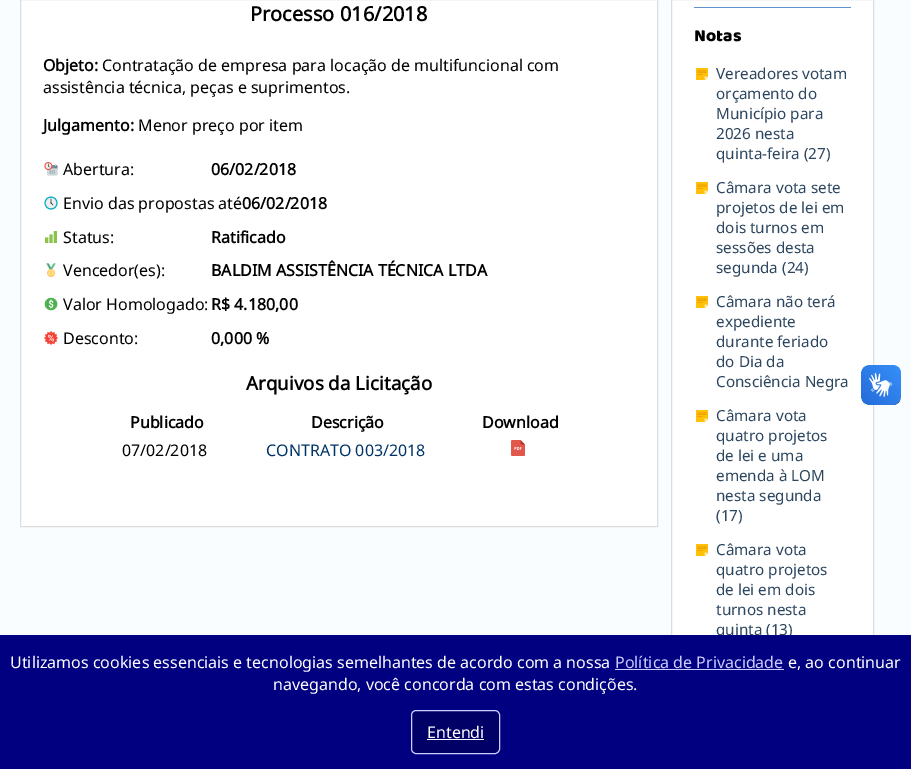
%!PS
<< /PageSize [911 769] >> setpagedevice
/mt/moveto load def
/li/lineto load def
/cp/closepath load def
/fl/fill load def
/st/stroke load def
/gs/gsave load def
/gr/grestore load def
/co { dup -16 bitshift 255 div exch dup -8 bitshift 255 and 255 div exch 255 and 255 div setrgbcolor } def
/fn { [ exch dup neg 0 0 3 -1 roll 0 0 ] selectfont } def
/tx { co fn moveto show } def
/bx { co rectfill } def
/rr { 5 dict begin { /r /h /w /y /x } { exch def } forall
  x r add y moveto x w add y 2 copy h add r arct x w add y h add x 1 index r arct
  x y h add x y r arct x y 2 copy exch w add exch r arct closepath end } def
/im { 5 dict begin { /h /w /y /x /name } { exch def } forall
  gsave x y translate w h scale
  w h 8 [w 0 0 h 0 0] name (r) file false 3 colorimage grestore end } def
0 769 translate 1 -1 scale
4 setmiterlimit
0 0 911 769 16#FAFDFF bx
16#FFFFFF co
20.5 -.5 mt 657.5 -.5 li 657.5 526.5 li 20.5 526.5 li cp gs fl gr
16#DDDDDD co
st
(media/1.raw) 44 162 14 14 im
(media/2.raw) 44 196 14 14 im
(media/3.raw) 45 231 12 12 im
(media/4.raw) 46 263 10 14 im
(media/5.raw) 44 297 14 14 im
(media/6.raw) 44 331 14 14 im
(media/7.raw) 511 440 14 16 im
672 0 201 635 16#FFFFFF bx
16#DDDDDD co
671.5 -.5 202 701 rectstroke
694 7 157 1 16#5F92CB bx
(media/8.raw) 696 68 12 12 im
(media/8.raw) 696 182 12 12 im
(media/8.raw) 696 296 12 12 im
(media/8.raw) 696 410 12 12 im
(media/8.raw) 696 544 12 12 im
(media/9.raw) 861 365 40 40 im
(media/10.raw) 861 365 40 40 im
(Processo 016/2018) 250 21 /NotoSans-Bold 20 16#000000 tx
(Objeto:) 43 71 /NotoSans-Bold 16 16#000000 tx
(Contratação de empresa para locação de multifuncional com) 102 71 /NotoSans-Regular 16 16#000000 tx
(assistência técnica, peças e suprimentos.) 43 93 /NotoSans-Regular 16 16#000000 tx
(Julgamento:) 43 131 /NotoSans-Bold 16 16#000000 tx
(Menor preço por item) 138 131 /NotoSans-Regular 16 16#000000 tx
(Abertura:) 63 175 /NotoSans-Regular 16 16#000000 tx
(06/02/2018) 211 175 /NotoSans-Bold 16 16#000000 tx
(Envio das propostas até) 63 209 /NotoSans-Regular 16 16#000000 tx
(06/02/2018) 242 209 /NotoSans-Bold 16 16#000000 tx
(Status:) 63 243 /NotoSans-Regular 16 16#000000 tx
(Ratificado) 211 243 /NotoSans-Bold 16 16#000000 tx
(Vencedor\(es\):) 63 276 /NotoSans-Regular 16 16#000000 tx
(BALDIM ASSISTÊNCIA TÉCNICA LTDA) 211 276 /NotoSans-Bold 16 16#000000 tx
(Valor Homologado:) 63 310 /NotoSans-Regular 16 16#000000 tx
(R$ 4.180,00) 211 310 /NotoSans-Bold 16 16#000000 tx
(Desconto:) 63 344 /NotoSans-Regular 16 16#000000 tx
(0,000 %) 211 344 /NotoSans-Bold 16 16#000000 tx
(Arquivos da Licitação) 246 390 /NotoSans-Bold 18.75 16#000000 tx
(Publicado) 130 428 /NotoSans-Bold 16 16#000000 tx
(Descrição) 311 428 /NotoSans-Bold 16 16#000000 tx
(Download) 482 428 /NotoSans-Bold 16 16#000000 tx
(07/02/2018) 122 456 /NotoSans-Regular 16 16#000000 tx
(CONTRATO 003/2018) 266 456 /NotoSans-Regular 16 16#003366 tx
(Notas) 694 41 /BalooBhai-Regular 17.5 16#000000 tx
(Vereadores votam) 716 79 /NotoSans-Regular 15.25 16#2D4660 tx
(orçamento do) 716 99 /NotoSans-Regular 15.25 16#2D4660 tx
(Município para) 716 119 /NotoSans-Regular 15.25 16#2D4660 tx
(2026 nesta) 716 139 /NotoSans-Regular 15.25 16#2D4660 tx
(quinta-feira \(27\)) 716 159 /NotoSans-Regular 15.25 16#2D4660 tx
(Câmara vota sete) 716 193 /NotoSans-Regular 15.25 16#2D4660 tx
(projetos de lei em) 716 213 /NotoSans-Regular 15.25 16#2D4660 tx
(dois turnos em) 716 233 /NotoSans-Regular 15.25 16#2D4660 tx
(sessões desta) 716 253 /NotoSans-Regular 15.25 16#2D4660 tx
(segunda \(24\)) 716 273 /NotoSans-Regular 15.25 16#2D4660 tx
(Câmara não terá) 716 307 /NotoSans-Regular 15.25 16#2D4660 tx
(expediente) 716 327 /NotoSans-Regular 15.25 16#2D4660 tx
(durante feriado) 716 347 /NotoSans-Regular 15.25 16#2D4660 tx
(do Dia da) 716 367 /NotoSans-Regular 15.25 16#2D4660 tx
(Consciência Negra) 716 387 /NotoSans-Regular 15.25 16#2D4660 tx
(Câmara vota) 716 421 /NotoSans-Regular 15.25 16#2D4660 tx
(quatro projetos) 716 441 /NotoSans-Regular 15.25 16#2D4660 tx
(de lei e uma) 716 461 /NotoSans-Regular 15.25 16#2D4660 tx
(emenda à LOM) 716 481 /NotoSans-Regular 15.25 16#2D4660 tx
(nesta segunda) 716 501 /NotoSans-Regular 15.25 16#2D4660 tx
(\(17\)) 716 521 /NotoSans-Regular 15.25 16#2D4660 tx
(Câmara vota) 716 555 /NotoSans-Regular 15.25 16#2D4660 tx
(quatro projetos) 716 575 /NotoSans-Regular 15.25 16#2D4660 tx
(de lei em dois) 716 595 /NotoSans-Regular 15.25 16#2D4660 tx
(turnos nesta) 716 615 /NotoSans-Regular 15.25 16#2D4660 tx
(quinta \(13\)) 716 635 /NotoSans-Regular 15.25 16#2D4660 tx
0 635 911 134 16#000080 bx
(Utilizamos cookies essenciais e tecnologias semelhantes de acordo com a nossa) 10 668 /NotoSans-Regular 16 16#FFFFFF tx
(Política de Privacidade) 615 668 /NotoSans-Regular 16 16#CCCCFF tx
615 669 169 1 16#CCCCFF bx
(e, ao continuar) 788 668 /NotoSans-Regular 16 16#FFFFFF tx
(navegando, você concorda com estas condições.) 273 690 /NotoSans-Regular 16 16#FFFFFF tx
16#000066 co
411.5 710.5 88 43 4.5 rr gs fl gr
16#CCCCFF co
st
(Entendi) 427 738 /NotoSans-Regular 16 16#FFFFFF tx
427 739 57 1 16#FFFFFF bx
showpage
